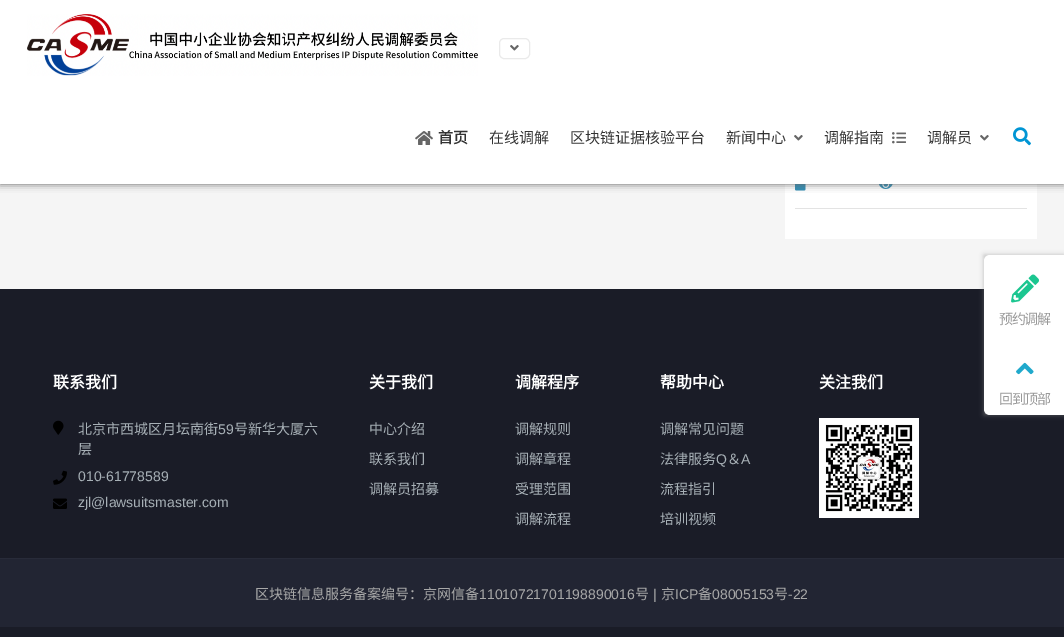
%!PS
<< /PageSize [1064 637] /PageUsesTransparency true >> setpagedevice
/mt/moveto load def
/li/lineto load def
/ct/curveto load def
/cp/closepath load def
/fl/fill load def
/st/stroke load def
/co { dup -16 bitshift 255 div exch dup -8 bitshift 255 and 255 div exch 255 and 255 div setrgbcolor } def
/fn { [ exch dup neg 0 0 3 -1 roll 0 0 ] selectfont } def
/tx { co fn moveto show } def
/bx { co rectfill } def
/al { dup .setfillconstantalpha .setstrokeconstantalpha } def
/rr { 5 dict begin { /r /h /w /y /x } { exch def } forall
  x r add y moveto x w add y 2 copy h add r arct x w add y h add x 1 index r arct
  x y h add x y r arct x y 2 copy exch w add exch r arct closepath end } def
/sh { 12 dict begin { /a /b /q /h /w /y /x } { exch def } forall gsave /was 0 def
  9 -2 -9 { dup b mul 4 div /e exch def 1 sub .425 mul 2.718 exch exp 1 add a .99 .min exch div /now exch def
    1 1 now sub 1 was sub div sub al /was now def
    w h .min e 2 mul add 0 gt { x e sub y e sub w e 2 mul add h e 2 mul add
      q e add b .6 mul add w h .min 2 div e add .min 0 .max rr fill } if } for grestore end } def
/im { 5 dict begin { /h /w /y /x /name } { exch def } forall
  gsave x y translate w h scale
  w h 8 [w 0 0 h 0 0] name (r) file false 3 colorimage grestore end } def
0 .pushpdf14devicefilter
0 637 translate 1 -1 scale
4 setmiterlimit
0 0 1064 637 16#F5F5F5 bx
785 184 252 55 16#FFFFFF bx
(media/6.raw) 795 184 11 7 im
(media/7.raw) 879 184 14 5 im
16#666666 co
0 0 1064 184 0 4 1 sh
0 0 1064 184 16#FFFFFF bx
(media/1.raw) 27 14 451 62 im
16#EAEAEA co
499.5 38.5 30 20 4.5 rr st
(media/2.raw) 510 45 9 6 im
(media/3.raw) 415 131 18 14 im
(media/2.raw) 794 135 9 6 im
(media/4.raw) 892 132 14 12 im
(media/2.raw) 980 135 9 6 im
(media/5.raw) 1013 127 18 19 im
795 208 232 1 16#E3E3E3 bx
0 289 1064 348 16#1A1C27 bx
16#8D8D8D co
984 255 80 160 0 2.5 .5 sh
16#FFFFFF co
990 255 mt 1064 255 li 1064 335 li 984 335 li 984 261 li 984 257.5 986.5 255 990 255 ct cp fl
(media/8.raw) 1011 274 28 29 im
984 335 mt 1064 335 li 1064 415 li 990 415 li 986.5 415 984 412.5 984 409 ct cp fl
(media/9.raw) 1016 362 18 13 im
(media/10.raw) 53 420 11 15 im
(media/11.raw) 53 470 14 15 im
(media/12.raw) 53 498 14 11 im
(media/13.raw) 819 418 100 100 im
0 559 1064 68 16#222533 bx
0 558 1064 1 16#282B39 bx
(首页) 438 143 /NotoSansCJKSC-Bold 15 16#333333 tx
(在线调解) 489 143 /NotoSansCJKSC-Regular 15 16#333333 tx
(区块链证据核验平台) 570 143 /NotoSansCJKSC-Regular 15 16#333333 tx
(新闻中心) 726 143 /NotoSansCJKSC-Regular 15 16#333333 tx
(调解指南) 824 143 /NotoSansCJKSC-Regular 15 16#333333 tx
(调解员) 927 143 /NotoSansCJKSC-Regular 15 16#333333 tx
/NotoSansCJKSC-Regular 14 fn
16#999999 co
999 324 mt -1.5 0 (预约调解) ashow
999 404 mt -1.5 0 (回到顶部) ashow
(联系我们) 53 388 /NotoSansCJKSC-Bold 16 16#FFFFFF tx
(北京市西城区月坛南街) 78 434 /NotoSansCJKSC-Regular 14 16#A7B0B6 tx
(59) 218 434 /LiberationSans-Regular 14 16#A7B0B6 tx
(号新华大厦六) 234 434 /NotoSansCJKSC-Regular 14 16#A7B0B6 tx
(层) 78 454 /NotoSansCJKSC-Regular 14 16#A7B0B6 tx
(010-61778589) 78 481 /LiberationSans-Regular 14 16#A7B0B6 tx
(zjl@lawsuitsmaster.com) 78 507 /LiberationSans-Regular 14 16#A7B0B6 tx
(关于我们) 369 388 /NotoSansCJKSC-Bold 16 16#FFFFFF tx
(中心介绍) 369 434 /NotoSansCJKSC-Regular 14 16#A7B0B6 tx
(联系我们) 369 464 /NotoSansCJKSC-Regular 14 16#A7B0B6 tx
(调解员招募) 369 494 /NotoSansCJKSC-Regular 14 16#A7B0B6 tx
(调解程序) 515 388 /NotoSansCJKSC-Bold 16 16#FFFFFF tx
(调解规则) 515 434 /NotoSansCJKSC-Regular 14 16#A7B0B6 tx
(调解章程) 515 464 /NotoSansCJKSC-Regular 14 16#A7B0B6 tx
(受理范围) 515 494 /NotoSansCJKSC-Regular 14 16#A7B0B6 tx
(调解流程) 515 524 /NotoSansCJKSC-Regular 14 16#A7B0B6 tx
(帮助中心) 660 388 /NotoSansCJKSC-Bold 16 16#FFFFFF tx
(调解常见问题) 660 434 /NotoSansCJKSC-Regular 14 16#A7B0B6 tx
(法律服务) 660 464 /NotoSansCJKSC-Regular 14 16#A7B0B6 tx
(Q) 716 464 /LiberationSans-Regular 14 16#A7B0B6 tx
(＆) 727 464 /NotoSansCJKSC-Regular 14 16#A7B0B6 tx
(A) 741 464 /LiberationSans-Regular 14 16#A7B0B6 tx
(流程指引) 660 494 /NotoSansCJKSC-Regular 14 16#A7B0B6 tx
(培训视频) 660 524 /NotoSansCJKSC-Regular 14 16#A7B0B6 tx
(关注我们) 819 388 /NotoSansCJKSC-Bold 16 16#FFFFFF tx
(区块链信息服务备案编号：京网信备) 255 599 /NotoSansCJKSC-Regular 14 16#A8A8A8 tx
(11010721701198890016) 479 599 /LiberationSans-Regular 14 16#A8A8A8 tx
(号) 635 599 /NotoSansCJKSC-Regular 14 16#A8A8A8 tx
(|) 653 599 /LiberationSans-Regular 14 16#A8A8A8 tx
(京) 661 599 /NotoSansCJKSC-Regular 14 16#A8A8A8 tx
(ICP) 675 599 /LiberationSans-Regular 14 16#A8A8A8 tx
(备) 698 599 /NotoSansCJKSC-Regular 14 16#A8A8A8 tx
(08005153) 712 599 /LiberationSans-Regular 14 16#A8A8A8 tx
(号) 774 599 /NotoSansCJKSC-Regular 14 16#A8A8A8 tx
(-22) 788 599 /LiberationSans-Regular 14 16#A8A8A8 tx
.poppdf14devicefilter showpage
